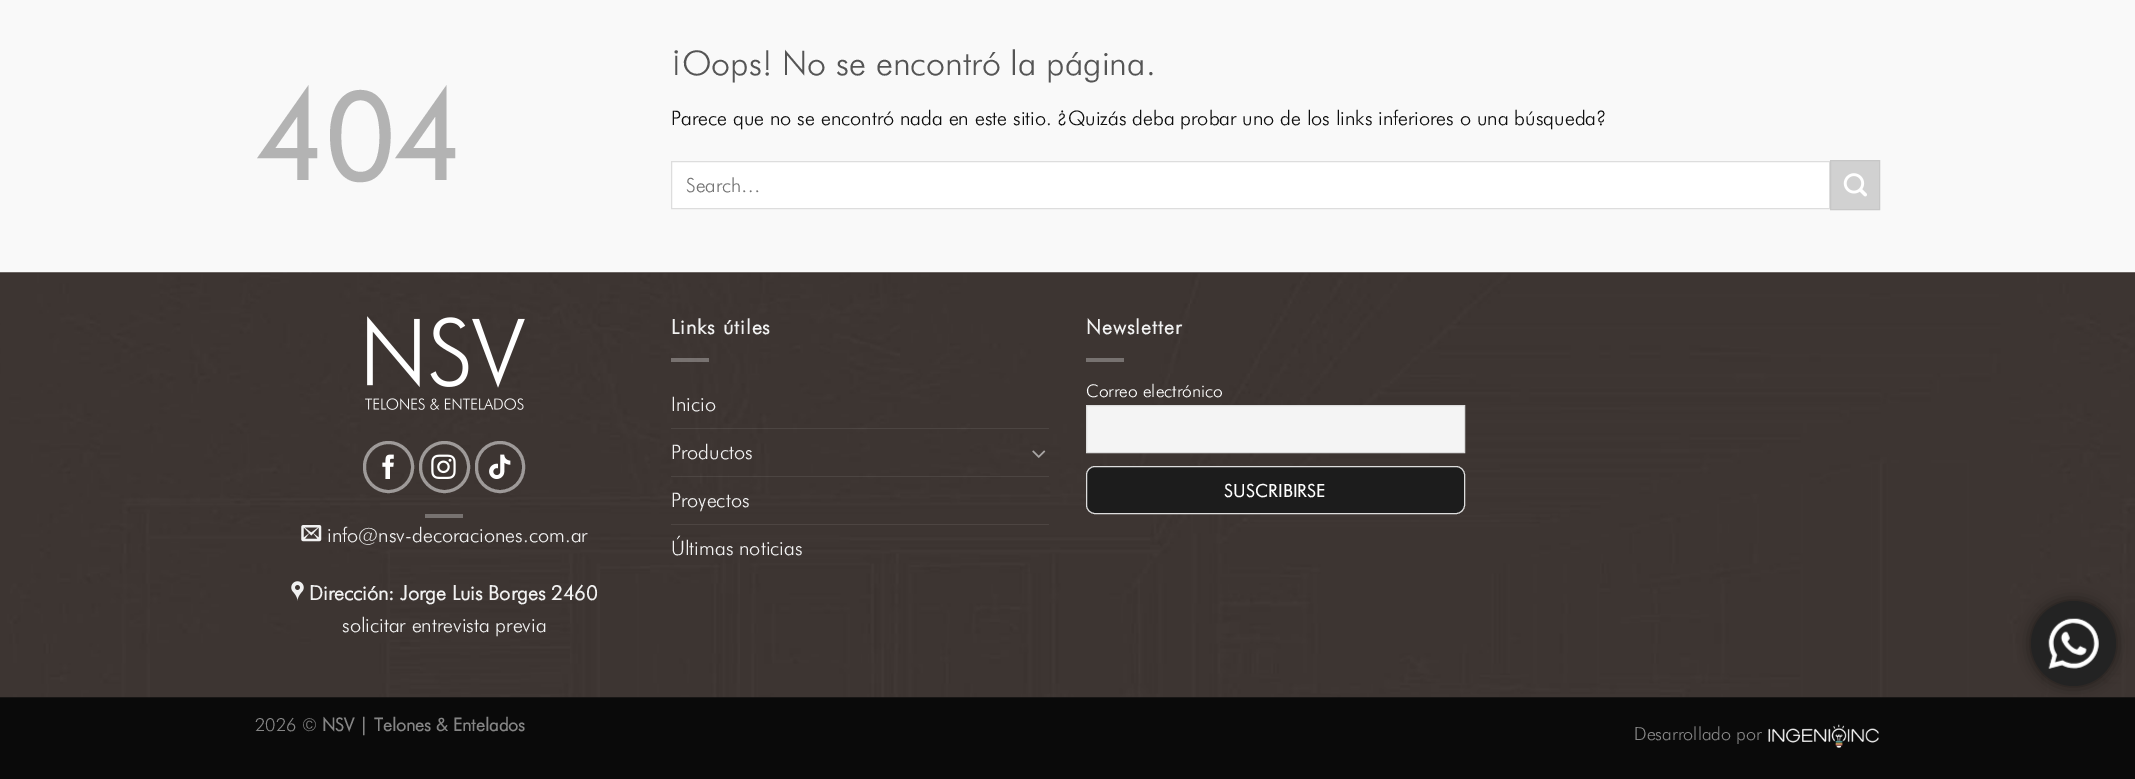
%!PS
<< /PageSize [2135 779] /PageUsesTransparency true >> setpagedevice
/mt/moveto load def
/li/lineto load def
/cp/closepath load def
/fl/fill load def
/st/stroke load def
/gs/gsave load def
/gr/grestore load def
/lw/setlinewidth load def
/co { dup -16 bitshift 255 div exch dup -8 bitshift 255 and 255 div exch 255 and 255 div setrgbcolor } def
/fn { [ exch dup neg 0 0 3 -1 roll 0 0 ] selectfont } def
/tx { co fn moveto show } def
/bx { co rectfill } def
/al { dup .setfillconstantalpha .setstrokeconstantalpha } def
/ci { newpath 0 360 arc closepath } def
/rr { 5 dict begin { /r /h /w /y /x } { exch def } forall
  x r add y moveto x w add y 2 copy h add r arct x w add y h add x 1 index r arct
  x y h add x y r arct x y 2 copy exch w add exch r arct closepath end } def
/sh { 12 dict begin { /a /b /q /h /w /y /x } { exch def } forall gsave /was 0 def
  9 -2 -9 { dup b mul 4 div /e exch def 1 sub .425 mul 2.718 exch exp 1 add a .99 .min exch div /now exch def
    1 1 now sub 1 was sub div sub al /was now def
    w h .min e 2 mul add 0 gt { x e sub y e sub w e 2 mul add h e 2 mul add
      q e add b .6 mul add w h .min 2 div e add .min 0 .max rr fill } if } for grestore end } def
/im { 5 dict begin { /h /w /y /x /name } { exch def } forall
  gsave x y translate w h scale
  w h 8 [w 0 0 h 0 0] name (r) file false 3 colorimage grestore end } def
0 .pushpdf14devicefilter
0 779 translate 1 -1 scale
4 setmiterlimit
0 0 2135 779 16#F9F9F9 bx
16#FFFFFF co
671.5 161.5 mt 1829.5 161.5 li 1829.5 208.5 li 671.5 208.5 li cp gs fl gr
16#DDDDDD co
st
16#D1D1D1 co
1830.5 160.5 mt 1879.5 160.5 li 1879.5 209.5 li 1830.5 209.5 li cp gs fl gr
16#C7C7C7 co
st
(media/1.raw) 1843 173 24 24 im
0 697 2135 1 16#0C0C0C bx
(media/2.raw) 0 272 2135 426 im
0.05 al
0 273 2135 1 16#000000 bx
0.3 al
671 358 38 4 16#FFFFFF bx
0.08 al
671 428 378 1 16#FFFFFF bx
1 al
(media/3.raw) 1032 450 14 8 im
0.08 al
671 476 378 1 16#FFFFFF bx
1 al
671 524 378 1 16#4D4542 bx
1086 358 38 4 16#777270 bx
16#F4F4F4 co
1086.5 405.5 mt 1464.5 405.5 li 1464.5 452.5 li 1086.5 452.5 li cp gs fl gr
16#DDDDDD co
st
16#1C1C1C co
1086.5 466.5 378 47 8.5 rr gs fl gr
16#DDDDDD co
st
(media/4.raw) 365 316 160 94 im
0.5 al
16#FFFFFF co
3 lw
364.5 442.5 48 49 24 rr st
1 al
(media/5.raw) 382 454 12 25 im
0.5 al
420.5 442.5 48 49 24 rr st
1 al
(media/6.raw) 431 454 25 25 im
0.5 al
476.5 442.5 47 49 23.5 rr st
1 al
(media/7.raw) 489 454 22 25 im
425 514 38 4 16#777270 bx
(media/8.raw) 301 525 21 17 im
(media/9.raw) 291 581 13 20 im
0 698 2135 81 16#0A0A0A bx
(media/10.raw) 1768 724 111 24 im
16#000000 co
2031 601 85 85 42.5 7 .5 sh
16#232323 co
2073.5 643.5 42.5 ci fl
(media/11.raw) 2048 618 51 51 im
(404) 255 180 /Futura-Bold 120 16#B3B3B3 tx
(¡Oops! No se encontró la página.) 671 75 /Futura-Light 34 16#555555 tx
(Parece que no se encontró nada en este sitio. ¿Quizás deba probar uno de los links inferiores o una búsqueda?) 671 125 /Futura-Light 20 16#0F0F0F tx
(Search…) 686 192 /Futura-Light 19.5 16#757575 tx
/Futura-Bold 20 fn
16#F1F1F1 co
671 334 mt 1 0 (Links útiles) ashow
(Inicio) 671 411 /Futura-Light 20 16#F1F1F1 tx
(Productos) 671 459 /Futura-Light 20 16#F1F1F1 tx
(Proyectos) 671 507 /Futura-Light 20 16#F1F1F1 tx
(Últimas noticias) 671 555 /Futura-Light 20 16#F1F1F1 tx
/Futura-Bold 20 fn
1086 334 mt 1 0 (Newsletter) ashow
(Correo electrónico) 1086 397 /Futura-Light 17.5 16#FFFFFF tx
/Futura-Bold 17.5 fn
1224 497 mt .5 0 (SUSCRIBIRSE) ashow
(info@nsv-decoraciones.com.ar) 327 542 /Futura-Light 20 16#F1F1F1 tx
(Dirección: Jorge Luis Borges 2460) 309 600 /Futura-Bold 20 16#F1F1F1 tx
(solicitar entrevista previa) 342 632 /Futura-Light 20 16#F1F1F1 tx
(2026 ©) 255 731 /Futura-Light 18 16#858585 tx
(NSV | Telones & Entelados) 322 731 /Futura-Bold 18 16#858585 tx
(Desarrollado por) 1634 740 /Futura-Light 18 16#858585 tx
.poppdf14devicefilter showpage
